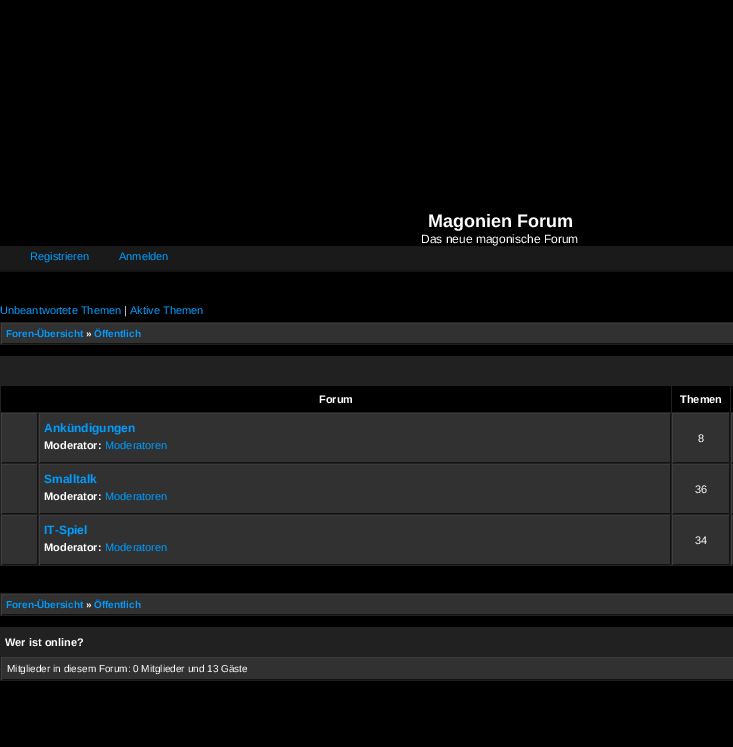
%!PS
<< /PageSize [733 747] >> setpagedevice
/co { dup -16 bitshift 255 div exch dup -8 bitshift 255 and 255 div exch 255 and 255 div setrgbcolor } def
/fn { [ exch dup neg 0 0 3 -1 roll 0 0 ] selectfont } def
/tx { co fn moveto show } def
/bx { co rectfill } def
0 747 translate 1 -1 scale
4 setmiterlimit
0 0 733 747 16#000000 bx
0 246 733 24 16#1A1A1A bx
0 270 733 2 16#131313 bx
0 322 733 23 16#212121 bx
2 324 731 19 16#313131 bx
1 323 732 1 16#3C3C3C bx
1 343 732 1 16#131313 bx
1 323 1 21 16#404040 bx
0 356 733 210 16#212121 bx
1 386 670 26 16#000000 bx
672 386 58 26 16#000000 bx
731 386 2 26 16#000000 bx
2 414 35 48 16#313131 bx
1 413 37 1 16#3C3C3C bx
37 413 1 50 16#121212 bx
1 462 37 1 16#131313 bx
1 413 1 50 16#404040 bx
40 414 630 48 16#313131 bx
39 413 632 1 16#3C3C3C bx
670 413 1 50 16#121212 bx
39 462 632 1 16#131313 bx
39 413 1 50 16#404040 bx
673 414 56 48 16#313131 bx
672 413 58 1 16#3C3C3C bx
729 413 1 50 16#121212 bx
672 462 58 1 16#131313 bx
672 413 1 50 16#404040 bx
732 413 1 50 16#313131 bx
731 413 2 1 16#3C3C3C bx
731 462 2 1 16#131313 bx
731 413 1 50 16#404040 bx
2 465 35 48 16#313131 bx
1 464 37 1 16#3C3C3C bx
37 464 1 50 16#121212 bx
1 513 37 1 16#131313 bx
1 464 1 50 16#404040 bx
40 465 630 48 16#313131 bx
39 464 632 1 16#3C3C3C bx
670 464 1 50 16#121212 bx
39 513 632 1 16#131313 bx
39 464 1 50 16#404040 bx
673 465 56 48 16#313131 bx
672 464 58 1 16#3C3C3C bx
729 464 1 50 16#121212 bx
672 513 58 1 16#131313 bx
672 464 1 50 16#404040 bx
732 464 1 50 16#313131 bx
731 464 2 1 16#3C3C3C bx
731 513 2 1 16#131313 bx
731 464 1 50 16#404040 bx
2 516 35 48 16#313131 bx
1 515 37 1 16#3C3C3C bx
37 515 1 50 16#121212 bx
1 564 37 1 16#131313 bx
1 515 1 50 16#404040 bx
40 516 630 48 16#313131 bx
39 515 632 1 16#3C3C3C bx
670 515 1 50 16#121212 bx
39 564 632 1 16#131313 bx
39 515 1 50 16#404040 bx
673 516 56 48 16#313131 bx
672 515 58 1 16#3C3C3C bx
729 515 1 50 16#121212 bx
672 564 58 1 16#131313 bx
672 515 1 50 16#404040 bx
732 515 1 50 16#313131 bx
731 515 2 1 16#3C3C3C bx
731 564 2 1 16#131313 bx
731 515 1 50 16#404040 bx
0 593 733 23 16#212121 bx
2 595 731 19 16#313131 bx
1 594 732 1 16#3C3C3C bx
1 614 732 1 16#131313 bx
1 594 1 21 16#404040 bx
0 627 733 54 16#212121 bx
2 658 731 21 16#313131 bx
1 657 732 1 16#3C3C3C bx
1 679 732 1 16#131313 bx
1 657 1 23 16#404040 bx
(Magonien Forum) 428 227 /LiberationSans-Bold 18 16#FFFFFF tx
(Das neue magonische Forum) 421 243 /LiberationSans-Regular 12 16#FFFFFF tx
(Registrieren) 30 260 /LiberationSans-Regular 11 16#009DFF tx
(Anmelden) 119 260 /LiberationSans-Regular 11 16#009DFF tx
(Unbeantwortete Themen) 0 314 /LiberationSans-Regular 11 16#009DFF tx
(|) 124 314 /LiberationSans-Regular 11 16#FFFFFF tx
(Aktive Themen) 130 314 /LiberationSans-Regular 11 16#009DFF tx
(Foren-Übersicht) 6 337 /LiberationSans-Bold 10 16#009DFF tx
(») 86 337 /LiberationSans-Bold 10 16#FFFFFF tx
(Öffentlich) 94 337 /LiberationSans-Bold 10 16#009DFF tx
(Forum) 319 403 /LiberationSans-Bold 11 16#FFFFFF tx
(Themen) 680 403 /LiberationSans-Bold 11 16#FFFFFF tx
(Ankündigungen) 44 432 /LiberationSans-Bold 12 16#009DFF tx
(Moderator:) 44 449 /LiberationSans-Bold 11 16#FFFFFF tx
(Moderatoren) 105 449 /LiberationSans-Regular 11 16#009DFF tx
(8) 698 442 /LiberationSans-Regular 11 16#FFFFFF tx
(Smalltalk) 44 483 /LiberationSans-Bold 12 16#009DFF tx
(Moderator:) 44 500 /LiberationSans-Bold 11 16#FFFFFF tx
(Moderatoren) 105 500 /LiberationSans-Regular 11 16#009DFF tx
(36) 695 493 /LiberationSans-Regular 11 16#FFFFFF tx
(IT-Spiel) 44 534 /LiberationSans-Bold 12 16#009DFF tx
(Moderator:) 44 551 /LiberationSans-Bold 11 16#FFFFFF tx
(Moderatoren) 105 551 /LiberationSans-Regular 11 16#009DFF tx
(34) 695 544 /LiberationSans-Regular 11 16#FFFFFF tx
(Foren-Übersicht) 6 608 /LiberationSans-Bold 10 16#009DFF tx
(») 86 608 /LiberationSans-Bold 10 16#FFFFFF tx
(Öffentlich) 94 608 /LiberationSans-Bold 10 16#009DFF tx
(Wer ist online?) 5 646 /LiberationSans-Bold 11 16#FFFFFF tx
(Mitglieder in diesem Forum: 0 Mitglieder und 13 Gäste) 7 672 /LiberationSans-Regular 10 16#FFFFFF tx
showpage
